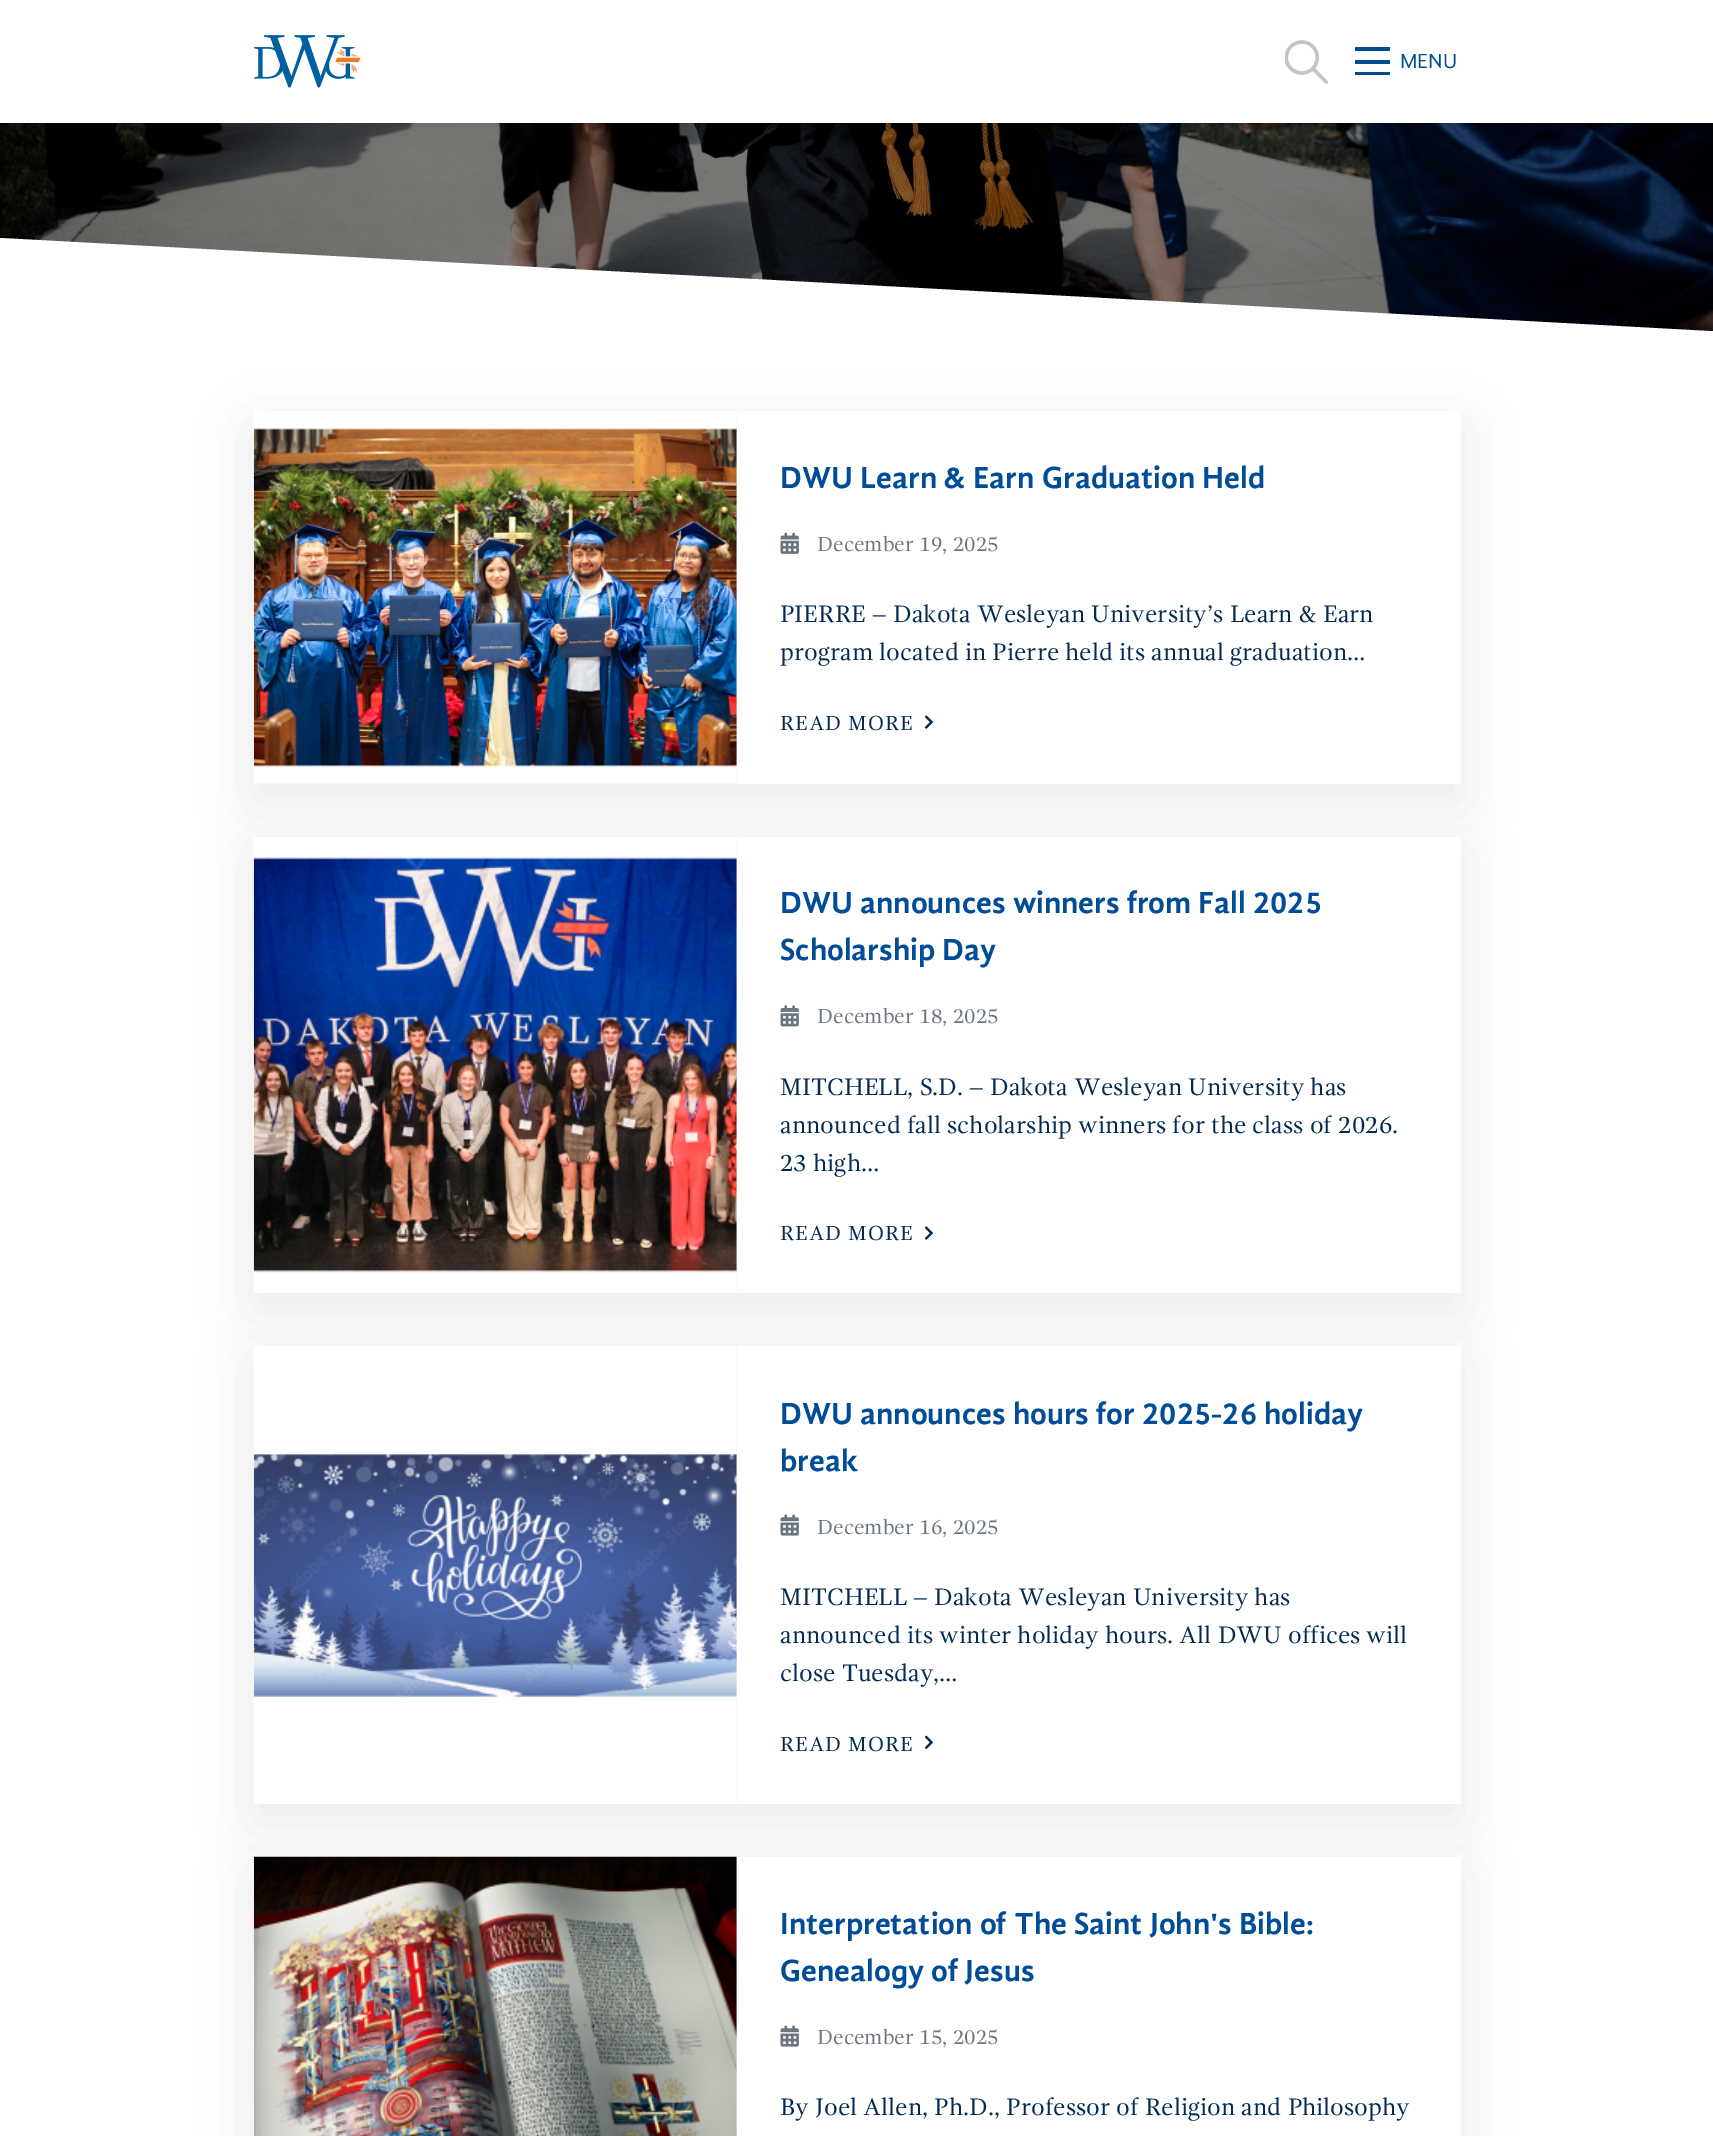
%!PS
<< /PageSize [1713 2136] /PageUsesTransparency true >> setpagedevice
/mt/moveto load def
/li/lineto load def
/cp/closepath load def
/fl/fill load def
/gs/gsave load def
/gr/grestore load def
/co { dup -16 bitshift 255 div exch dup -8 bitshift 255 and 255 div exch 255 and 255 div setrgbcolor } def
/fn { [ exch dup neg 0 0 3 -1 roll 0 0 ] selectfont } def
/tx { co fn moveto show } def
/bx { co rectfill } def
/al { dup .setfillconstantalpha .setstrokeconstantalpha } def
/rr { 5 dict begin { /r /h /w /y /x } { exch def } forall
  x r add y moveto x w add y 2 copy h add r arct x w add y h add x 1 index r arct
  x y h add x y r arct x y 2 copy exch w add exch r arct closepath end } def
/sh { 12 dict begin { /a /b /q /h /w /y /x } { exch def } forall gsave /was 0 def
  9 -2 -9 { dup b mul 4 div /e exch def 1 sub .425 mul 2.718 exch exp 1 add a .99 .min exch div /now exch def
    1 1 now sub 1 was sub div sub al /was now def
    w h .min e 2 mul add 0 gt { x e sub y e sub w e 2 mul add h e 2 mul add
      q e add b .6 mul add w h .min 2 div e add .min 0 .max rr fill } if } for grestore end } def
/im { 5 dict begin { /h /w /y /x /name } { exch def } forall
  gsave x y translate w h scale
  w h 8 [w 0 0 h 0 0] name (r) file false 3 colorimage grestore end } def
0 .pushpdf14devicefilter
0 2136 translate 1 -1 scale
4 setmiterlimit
0 0 1713 2136 16#FFFFFF bx
(media/3.raw) 0 123 1713 209 im
16#000000 co
0 2 1713 122 0 4.5 .06 sh
0 4 1713 122 0 2 .06 sh
0 0 1713 123 16#FFFFFF bx
(media/1.raw) 254 35 107 53 im
(media/2.raw) 1285 40 43 44 im
1355 47 35 4 16#004C97 bx
1355 60 35 4 16#004C97 bx
1355 72 35 3 16#004C97 bx
16#FFFFFF co
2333 413 mt 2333 365 li 0 238 li 0 413 li cp fl
gs
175 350 mt 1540 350 li 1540 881 li 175 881 li cp 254 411 mt 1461 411 li 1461 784 li 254 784 li cp eoclip newpath
16#000000 co
254 429 1207 373 0 26 .08 sh
gr
254 411 483 373 16#F1F1F1 bx
(media/4.raw) 253 411 484 373 im
(media/5.raw) 780 532 19 22 im
(media/6.raw) 924 715 9 14 im
16#000000 co
254 854 1207 457 0 26 .08 sh
737 837 724 456 16#FFFFFF bx
736 837 1 456 16#F1F1F1 bx
(media/7.raw) 253 837 484 456 im
(media/8.raw) 780 1005 19 22 im
(media/6.raw) 924 1226 9 14 im
16#000000 co
254 1363 1207 459 0 26 .08 sh
737 1346 724 458 16#FFFFFF bx
736 1346 1 458 16#F1F1F1 bx
(media/9.raw) 253 1346 484 458 im
(media/10.raw) 780 1514 19 22 im
(media/11.raw) 924 1735 9 14 im
16#000000 co
254 1874 1207 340 0 26 .08 sh
737 1857 724 279 16#FFFFFF bx
736 1857 1 279 16#F1F1F1 bx
(media/12.raw) 253 1856 484 280 im
(media/10.raw) 780 2025 19 22 im
(MENU) 1400 68 /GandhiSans-Regular 21 16#004C97 tx
(DWU Learn & Earn Graduation Held) 780 488 /GandhiSans-Bold 31.5 16#004C97 tx
(December 19, 2025) 817 551 /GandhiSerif-Regular 21 16#6C757D tx
(PIERRE – Dakota Wesleyan University’s Learn & Earn) 780 622 /GandhiSerif-Regular 24.5 16#022A52 tx
(program located in Pierre held its annual graduation…) 780 660 /GandhiSerif-Regular 24.5 16#022A52 tx
/GandhiSerif-Regular 21 fn
780 730 mt .9 0 (READ MORE) ashow
(DWU announces winners from Fall 2025) 780 913 /GandhiSans-Bold 31.5 16#004C97 tx
(Scholarship Day) 780 960 /GandhiSans-Bold 31.5 16#004C97 tx
(December 18, 2025) 817 1023 /GandhiSerif-Regular 21 16#6C757D tx
(MITCHELL, S.D. – Dakota Wesleyan University has) 780 1095 /GandhiSerif-Regular 24.5 16#022A52 tx
(announced fall scholarship winners for the class of 2026.) 780 1133 /GandhiSerif-Regular 24.5 16#022A52 tx
(23 high…) 780 1171 /GandhiSerif-Regular 24.5 16#022A52 tx
/GandhiSerif-Regular 21 fn
780 1240 mt .9 0 (READ MORE) ashow
(DWU announces hours for 2025-26 holiday) 780 1424 /GandhiSans-Bold 31.5 16#004C97 tx
(break) 780 1471 /GandhiSans-Bold 31.5 16#004C97 tx
(December 16, 2025) 817 1534 /GandhiSerif-Regular 21 16#6C757D tx
(MITCHELL – Dakota Wesleyan University has) 780 1605 /GandhiSerif-Regular 24.5 16#022A52 tx
(announced its winter holiday hours. All DWU offices will) 780 1643 /GandhiSerif-Regular 24.5 16#022A52 tx
(close Tuesday,…) 780 1681 /GandhiSerif-Regular 24.5 16#022A52 tx
/GandhiSerif-Regular 21 fn
780 1751 mt .9 0 (READ MORE) ashow
(Interpretation of The Saint John's Bible:) 780 1934 /GandhiSans-Bold 31.5 16#004C97 tx
(Genealogy of Jesus) 780 1981 /GandhiSans-Bold 31.5 16#004C97 tx
(December 15, 2025) 817 2044 /GandhiSerif-Regular 21 16#6C757D tx
(By Joel Allen, Ph.D., Professor of Religion and Philosophy) 780 2115 /GandhiSerif-Regular 24.5 16#022A52 tx
.poppdf14devicefilter showpage
